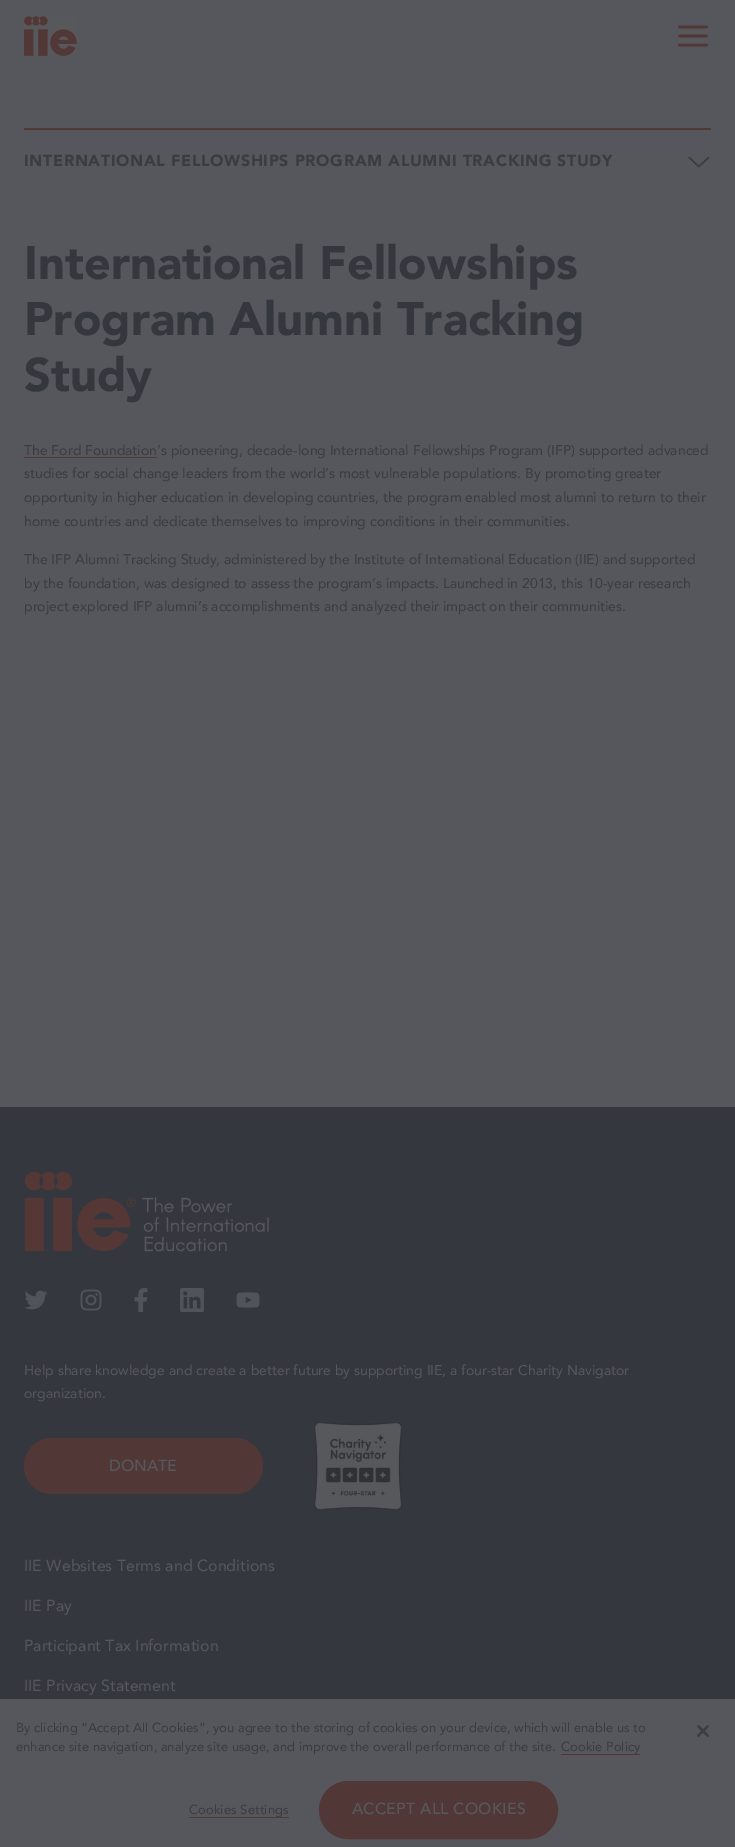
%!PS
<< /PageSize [735 1847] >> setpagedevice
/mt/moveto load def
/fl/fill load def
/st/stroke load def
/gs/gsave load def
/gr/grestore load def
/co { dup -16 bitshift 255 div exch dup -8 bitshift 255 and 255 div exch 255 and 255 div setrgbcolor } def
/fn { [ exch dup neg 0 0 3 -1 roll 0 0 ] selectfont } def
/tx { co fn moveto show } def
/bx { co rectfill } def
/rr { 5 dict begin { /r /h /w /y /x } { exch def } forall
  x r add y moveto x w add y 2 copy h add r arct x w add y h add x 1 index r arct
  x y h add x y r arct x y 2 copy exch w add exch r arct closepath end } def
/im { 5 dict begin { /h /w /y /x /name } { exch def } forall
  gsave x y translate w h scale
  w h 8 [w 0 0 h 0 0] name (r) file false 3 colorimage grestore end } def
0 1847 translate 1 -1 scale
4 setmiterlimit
0 0 735 1847 16#56575C bx
(media/1.raw) 24 16 53 40 im
(media/2.raw) 678 25 30 22 im
24 128 687 2 16#513836 bx
(media/3.raw) 688 156 22 12 im
24 457 133 1 16#513836 bx
0 1107 735 592 16#34383E bx
(media/4.raw) 24 1171 245 81 im
(media/5.raw) 24 1290 24 20 im
(media/6.raw) 80 1289 22 22 im
(media/7.raw) 134 1288 14 24 im
(media/8.raw) 180 1288 24 24 im
(media/9.raw) 236 1292 24 16 im
16#513836 co
24 1438 239 56 28 rr fl
(media/10.raw) 313 1421 90 90 im
561 1754 79 1 16#513836 bx
189 1817 100 1 16#513836 bx
319.5 1781.5 238 57 28.5 rr gs fl gr
st
(media/11.raw) 697 1725 12 12 im
/Avenir-Black 16 fn
16#3A3C42 co
24 166 mt .65 0 (INTERNATIONAL FELLOWSHIPS PROGRAM ALUMNI TRACKING STUDY) ashow
(International Fellowships) 24 279 /Avenir-Black 46.8 16#34383E tx
(Program Alumni Tracking) 24 335 /Avenir-Black 46.8 16#34383E tx
(Study) 24 391 /Avenir-Black 46.8 16#34383E tx
(The Ford Foundation’s pioneering, decade-long International Fellowships Program \(IFP\) supported advanced) 24 455 /Avenir-Regular 14 16#3A3C42 tx
(studies for social change leaders from the world’s most vulnerable populations. By promoting greater) 24 478 /Avenir-Regular 14 16#3A3C42 tx
(opportunity in higher education in developing countries, the program enabled most alumni to return to their) 24 502 /Avenir-Regular 14 16#3A3C42 tx
(home countries and dedicate themselves to improving conditions in their communities.) 24 526 /Avenir-Regular 14 16#3A3C42 tx
(The IFP Alumni Tracking Study, administered by the Institute of International Education \(IIE\) and supported) 24 564 /Avenir-Regular 14 16#3A3C42 tx
(by the foundation, was designed to assess the program’s impacts. Launched in 2013, this 10-year research) 24 588 /Avenir-Regular 14 16#3A3C42 tx
(project explored IFP alumni’s accomplishments and analyzed their impact on their communities.) 24 611 /Avenir-Regular 14 16#3A3C42 tx
(Help share knowledge and create a better future by supporting IIE, a four-star Charity Navigator) 24 1375 /Avenir-Regular 14 16#57585C tx
(organization.) 24 1398 /Avenir-Regular 14 16#57585C tx
(DONATE) 109 1471 /Avenir-Medium 16 16#57585C tx
(IIE Websites Terms and Conditions) 24 1571 /Avenir-Regular 16 16#57585C tx
(IIE Pay) 24 1611 /Avenir-Regular 16 16#57585C tx
(Participant Tax Information) 24 1651 /Avenir-Regular 16 16#57585C tx
(IIE Privacy Statement) 24 1691 /Avenir-Regular 16 16#57585C tx
(By clicking “Accept All Cookies”, you agree to the storing of cookies on your device, which will enable us to) 16 1732 /Avenir-Regular 13 16#3A3C42 tx
(enhance site navigation, analyze site usage, and improve the overall performance of the site.) 16 1751 /Avenir-Regular 13 16#3A3C42 tx
(Cookie Policy) 561 1751 /Avenir-Regular 13 16#3A3C42 tx
189 1814 mt .1 0 (Cookies Settings) ashow
/Avenir-Medium 16 fn
16#57585C co
352 1814 mt .2 0 (ACCEPT ALL COOKIES) ashow
showpage
